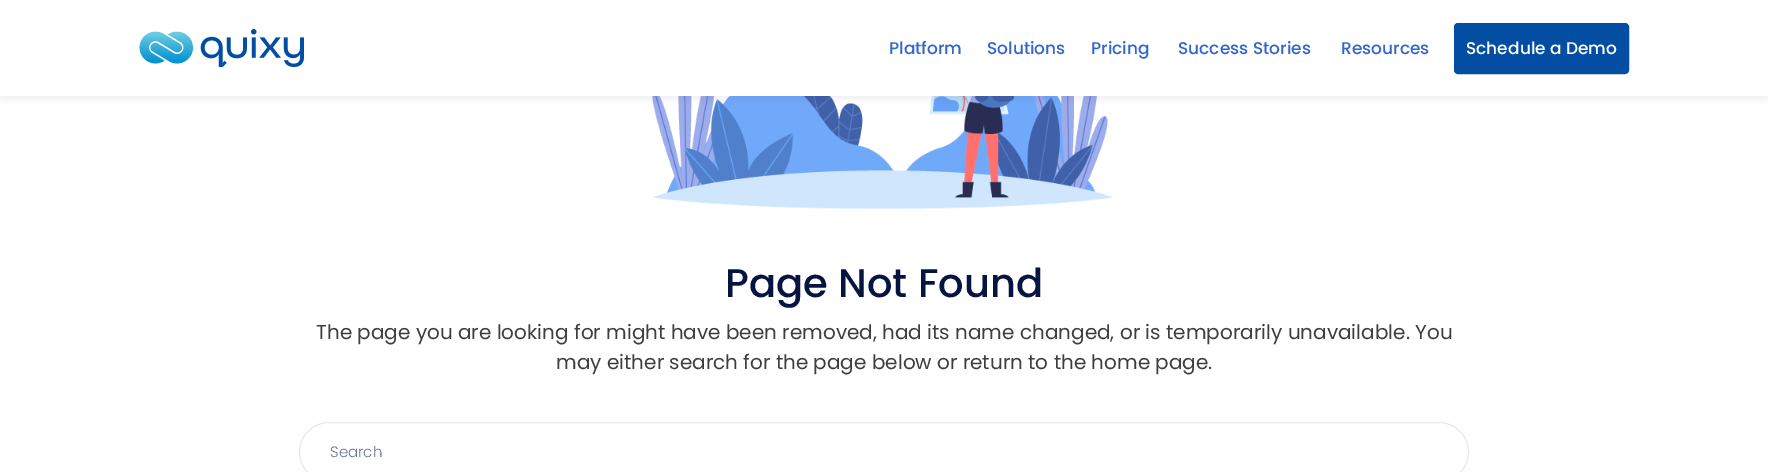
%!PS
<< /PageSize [1768 472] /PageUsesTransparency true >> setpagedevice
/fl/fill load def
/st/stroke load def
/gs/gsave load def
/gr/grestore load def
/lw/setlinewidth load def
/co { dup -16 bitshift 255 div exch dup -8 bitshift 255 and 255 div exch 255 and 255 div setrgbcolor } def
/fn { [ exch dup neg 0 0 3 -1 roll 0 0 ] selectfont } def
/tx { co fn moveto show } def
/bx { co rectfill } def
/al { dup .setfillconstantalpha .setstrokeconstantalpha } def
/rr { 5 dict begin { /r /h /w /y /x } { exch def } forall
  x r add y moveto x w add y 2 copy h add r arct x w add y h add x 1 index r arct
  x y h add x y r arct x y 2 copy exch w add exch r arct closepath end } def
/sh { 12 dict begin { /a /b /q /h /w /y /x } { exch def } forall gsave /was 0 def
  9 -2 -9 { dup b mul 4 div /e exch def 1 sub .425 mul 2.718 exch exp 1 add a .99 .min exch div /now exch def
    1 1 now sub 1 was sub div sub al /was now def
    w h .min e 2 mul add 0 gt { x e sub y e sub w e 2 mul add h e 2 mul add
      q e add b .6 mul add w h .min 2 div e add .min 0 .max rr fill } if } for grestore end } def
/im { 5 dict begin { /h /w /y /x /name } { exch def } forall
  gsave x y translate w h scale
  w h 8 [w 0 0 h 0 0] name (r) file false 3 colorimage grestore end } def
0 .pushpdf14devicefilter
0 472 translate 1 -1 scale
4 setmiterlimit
0 0 1768 472 16#FFFFFF bx
(media/2.raw) 652 96 462 113 im
16#0C002E co
0 4 1768 96 0 3 .06 sh
0 1 1768 95 16#FFFFFF bx
(media/1.raw) 139 29 165 38 im
16#034EA2 co
1455 24 173 49 3 rr gs fl gr
2 lw
st
16#E8E8E8 co
1 lw
299.5 422.5 1169 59 29.5 rr st
(Platform) 889 54 /Poppins-Medium 17 16#3366CC tx
(Solutions) 987 54 /Poppins-Medium 17 16#3366CC tx
(Pricing) 1091 54 /Poppins-Medium 17 16#3366CC tx
(Success Stories) 1178 54 /Poppins-Medium 17 16#3366CC tx
(Resources) 1341 54 /Poppins-Medium 17 16#3366CC tx
(Schedule a Demo) 1466 54 /Poppins-Medium 17 16#FFFFFF tx
(Page Not Found) 725 297 /Poppins-Medium 40 16#051441 tx
(The page you are looking for might have been removed, had its name changed, or is temporarily unavailable. You) 316 339 /Poppins-Regular 20 16#3E3E3E tx
(may either search for the page below or return to the home page.) 556 369 /Poppins-Regular 20 16#3E3E3E tx
(Search) 330 457 /Poppins-Light 15 16#677294 tx
.poppdf14devicefilter showpage
